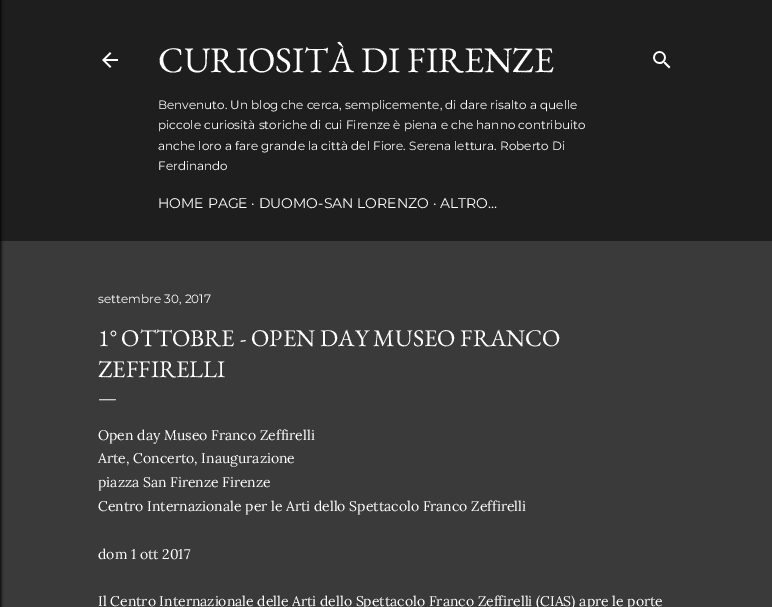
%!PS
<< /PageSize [772 607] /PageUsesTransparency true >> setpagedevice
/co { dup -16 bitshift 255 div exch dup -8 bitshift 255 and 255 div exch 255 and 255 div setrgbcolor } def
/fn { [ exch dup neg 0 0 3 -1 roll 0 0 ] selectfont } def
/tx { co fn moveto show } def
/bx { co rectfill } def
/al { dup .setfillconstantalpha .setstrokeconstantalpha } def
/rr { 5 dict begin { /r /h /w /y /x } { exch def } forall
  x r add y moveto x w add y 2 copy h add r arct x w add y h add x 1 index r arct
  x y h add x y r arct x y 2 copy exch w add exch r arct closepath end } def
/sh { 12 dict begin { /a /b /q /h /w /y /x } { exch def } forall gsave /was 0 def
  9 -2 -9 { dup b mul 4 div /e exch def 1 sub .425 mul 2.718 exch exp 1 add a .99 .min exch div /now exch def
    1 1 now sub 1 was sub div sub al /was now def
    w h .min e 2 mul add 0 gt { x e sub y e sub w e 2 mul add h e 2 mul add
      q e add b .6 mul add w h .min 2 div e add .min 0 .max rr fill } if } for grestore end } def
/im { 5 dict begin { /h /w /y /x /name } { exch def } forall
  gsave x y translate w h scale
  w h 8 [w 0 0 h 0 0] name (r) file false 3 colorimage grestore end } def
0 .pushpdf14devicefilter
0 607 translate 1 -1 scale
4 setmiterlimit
0 0 772 607 16#3A3A3A bx
0 0 772 241 16#1E1E1E bx
16#000000 co
-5 0 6 607 0 1.5 1 sh
(media/1.raw) 102 52 16 16 im
(media/2.raw) 653 51 18 18 im
(CURIOSITÀ DI FIRENZE) 158 72 /EBGaramond-Regular 36 16#FFFFFF tx
(Benvenuto. Un blog che cerca, semplicemente, di dare risalto a quelle) 158 109 /Montserrat-Regular 12 16#FFFFFF tx
(piccole curiosità storiche di cui Firenze è piena e che hanno contribuito) 158 129 /Montserrat-Regular 12 16#FFFFFF tx
(anche loro a fare grande la città del Fiore. Serena lettura. Roberto Di) 158 150 /Montserrat-Regular 12 16#FFFFFF tx
(Ferdinando) 158 170 /Montserrat-Regular 12 16#FFFFFF tx
(HOME PAGE · DUOMO-SAN LORENZO · ALTRO…) 158 208 /Montserrat-Regular 14 16#FFFFFF tx
(settembre 30, 2017) 98 303 /Montserrat-Regular 12 16#FFFFFF tx
(1° OTTOBRE - OPEN DAY MUSEO FRANCO) 98 346 /EBGaramond-Regular 24 16#FFFFFF tx
(ZEFFIRELLI) 98 377 /EBGaramond-Regular 24 16#FFFFFF tx
(—) 98 404 /EBGaramond-Regular 20 16#FFFFFF tx
(Open day Museo Franco Zeffirelli) 98 440 /Lora-Regular 14 16#FFFFFF tx
(Arte, Concerto, Inaugurazione) 98 463 /Lora-Regular 14 16#FFFFFF tx
(piazza San Firenze Firenze) 98 487 /Lora-Regular 14 16#FFFFFF tx
(Centro Internazionale per le Arti dello Spettacolo Franco Zeffirelli) 98 511 /Lora-Regular 14 16#FFFFFF tx
(dom 1 ott 2017) 98 559 /Lora-Regular 14 16#FFFFFF tx
(Il Centro Internazionale delle Arti dello Spettacolo Franco Zeffirelli \(CIAS\) apre le porte) 98 606 /Lora-Regular 14 16#FFFFFF tx
.poppdf14devicefilter showpage
